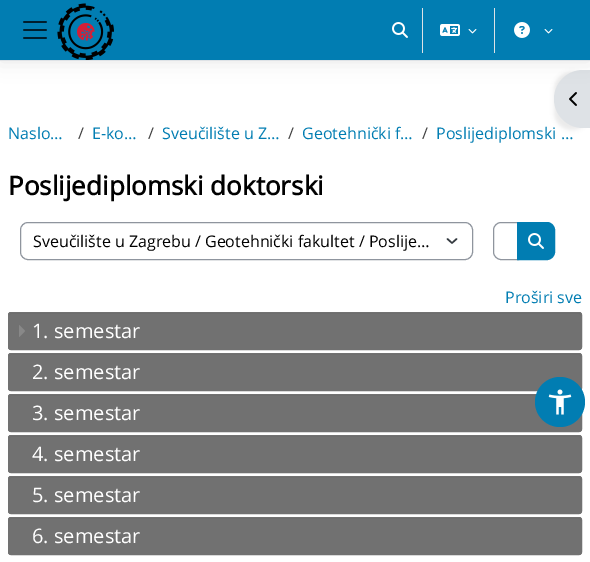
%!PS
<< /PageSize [590 562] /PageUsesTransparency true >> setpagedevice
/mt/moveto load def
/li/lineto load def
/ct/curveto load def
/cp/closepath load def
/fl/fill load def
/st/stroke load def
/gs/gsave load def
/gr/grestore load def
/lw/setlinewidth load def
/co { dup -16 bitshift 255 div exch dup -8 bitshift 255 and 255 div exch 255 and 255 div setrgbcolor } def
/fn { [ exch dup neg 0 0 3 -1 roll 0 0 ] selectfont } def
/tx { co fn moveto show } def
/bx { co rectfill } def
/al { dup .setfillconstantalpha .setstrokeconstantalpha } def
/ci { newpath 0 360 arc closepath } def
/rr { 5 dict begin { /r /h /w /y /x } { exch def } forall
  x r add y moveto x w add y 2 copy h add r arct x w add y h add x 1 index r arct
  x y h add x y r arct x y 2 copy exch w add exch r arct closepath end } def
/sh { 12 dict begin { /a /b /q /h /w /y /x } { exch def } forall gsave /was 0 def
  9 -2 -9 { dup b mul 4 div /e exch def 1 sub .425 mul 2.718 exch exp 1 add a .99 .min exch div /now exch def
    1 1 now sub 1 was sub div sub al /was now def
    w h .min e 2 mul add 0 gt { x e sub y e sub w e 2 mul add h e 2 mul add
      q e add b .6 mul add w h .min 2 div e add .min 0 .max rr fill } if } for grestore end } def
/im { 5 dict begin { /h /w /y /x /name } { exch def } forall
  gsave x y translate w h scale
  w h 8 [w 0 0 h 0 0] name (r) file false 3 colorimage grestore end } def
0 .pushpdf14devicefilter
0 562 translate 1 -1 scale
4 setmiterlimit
0 0 590 562 16#FFFFFF bx
16#000000 co
554 72 36 58 29 2 .07 sh
16#343A40 co
1.5 lw
1 setlinecap
1 setlinejoin
447.5 239 mt 452 243 li 456.5 239 li st
16#8F959E co
1 lw
0 setlinecap
0 setlinejoin
20.5 222.5 452 37 7.5 rr st
501 222.5 mt 518.5 222.5 li 518.5 259.5 li 501 259.5 li 497 259.5 493.5 256 493.5 252 ct 493.5 230 li 493.5 226 497 222.5 501 222.5 ct cp st
16#017DB2 co
517.5 222.5 mt 547 222.5 li 551 222.5 554.5 226 554.5 230 ct 554.5 252 li 554.5 256 551 259.5 547 259.5 ct 517.5 259.5 li cp gs fl gr
st
(media/3.raw) 528 233 16 16 im
16#717171 co
8 312 574 38 3 rr fl
16#6B6B6B co
11 314 mt 579 314 li 580 314 581 315 581 316 ct 581 315 581 313 579 313 ct 11 313 li 9 314 li 9 316 li 9 315 10 314 11 314 ct cp fl
16#717171 co
8.5 312.5 573 37 2.5 rr st
(media/8.raw) 19 325 6 12 im
8 353 574 38 3 rr fl
16#6B6B6B co
11 355 mt 579 355 li 580 355 581 356 581 357 ct 581 356 581 354 579 354 ct 11 354 li 9 355 li 9 357 li 9 356 10 355 11 355 ct cp fl
16#717171 co
8.5 353.5 573 37 2.5 rr st
8 394 574 38 3 rr fl
16#6B6B6B co
11 396 mt 579 396 li 580 396 581 397 581 398 ct 581 397 581 395 579 395 ct 11 395 li 9 396 li 9 398 li 9 397 10 396 11 396 ct cp fl
16#717171 co
8.5 394.5 573 37 2.5 rr st
8 435 574 38 3 rr fl
16#6B6B6B co
11 437 mt 579 437 li 580 437 581 438 581 439 ct 581 438 581 436 579 436 ct 11 436 li 9 437 li 9 439 li 9 438 10 437 11 437 ct cp fl
16#717171 co
8.5 435.5 573 37 2.5 rr st
8 476 574 38 3 rr fl
16#6B6B6B co
11 478 mt 579 478 li 580 478 581 479 581 480 ct 581 479 581 477 579 477 ct 11 477 li 9 478 li 9 480 li 9 479 10 478 11 478 ct cp fl
16#717171 co
8.5 476.5 573 37 2.5 rr st
8 517 574 38 3 rr fl
16#6B6B6B co
11 519 mt 579 519 li 580 519 581 520 581 521 ct 581 520 581 518 579 518 ct 11 518 li 9 519 li 9 521 li 9 520 10 519 11 519 ct cp fl
16#717171 co
8.5 517.5 573 37 2.5 rr st
16#017DB2 co
560 402 25 ci fl
(media/9.raw) 548 389 24 26 im
(Naslo…) 8 139 /OpenSans-Regular 16 16#017DB2 tx
(/) 78 139 /OpenSans-Regular 16 16#404040 tx
(E-ko…) 92 139 /OpenSans-Regular 16 16#017DB2 tx
(/) 148 139 /OpenSans-Regular 16 16#404040 tx
(Sveučilište u Z…) 162 139 /OpenSans-Regular 16 16#017DB2 tx
(/) 288 139 /OpenSans-Regular 16 16#404040 tx
(Geotehnički f…) 302 139 /OpenSans-Regular 16 16#017DB2 tx
(/) 422 139 /OpenSans-Regular 16 16#404040 tx
(Poslijediplomski …) 436 139 /OpenSans-Regular 16 16#017DB2 tx
16#DEE2E6 co
583 70 mt 590 70 li 590 128 li 583 128 li 567 128 554 115 554 99 ct 554 83 567 70 583 70 ct cp fl
16#000000 co
0 0 590 61 0 10 .1 sh
0 0 590 60 16#017DB2 bx
(media/5.raw) 544 29 9 5 im
(media/6.raw) 514 22 16 16 im
(media/5.raw) 468 29 9 5 im
(media/4.raw) 440 24 20 12 im
494 8 1 45 16#DEE2E6 bx
422 8 1 45 16#DEE2E6 bx
(media/3.raw) 392 22 16 16 im
(media/2.raw) 57 3 57 57 im
(media/1.raw) 23 21 24 18 im
0 60 590 1 16#DEE2E6 bx
(media/7.raw) 569 92 8 14 im
(Poslijediplomski doktorski) 8 195 /OpenSans-Bold 26 16#000000 tx
(Sveučilište u Zagrebu / Geotehnički fakultet / Poslije…) 33 247 /OpenSans-Regular 16 16#000000 tx
(Proširi sve) 505 303 /OpenSans-Regular 16 16#017DB2 tx
(1. semestar) 32 338 /OpenSans-Regular 20 16#FFFFFF tx
(2. semestar) 32 379 /OpenSans-Regular 20 16#FFFFFF tx
(3. semestar) 32 420 /OpenSans-Regular 20 16#FFFFFF tx
(4. semestar) 32 461 /OpenSans-Regular 20 16#FFFFFF tx
(5. semestar) 32 502 /OpenSans-Regular 20 16#FFFFFF tx
(6. semestar) 32 543 /OpenSans-Regular 20 16#FFFFFF tx
.poppdf14devicefilter showpage
